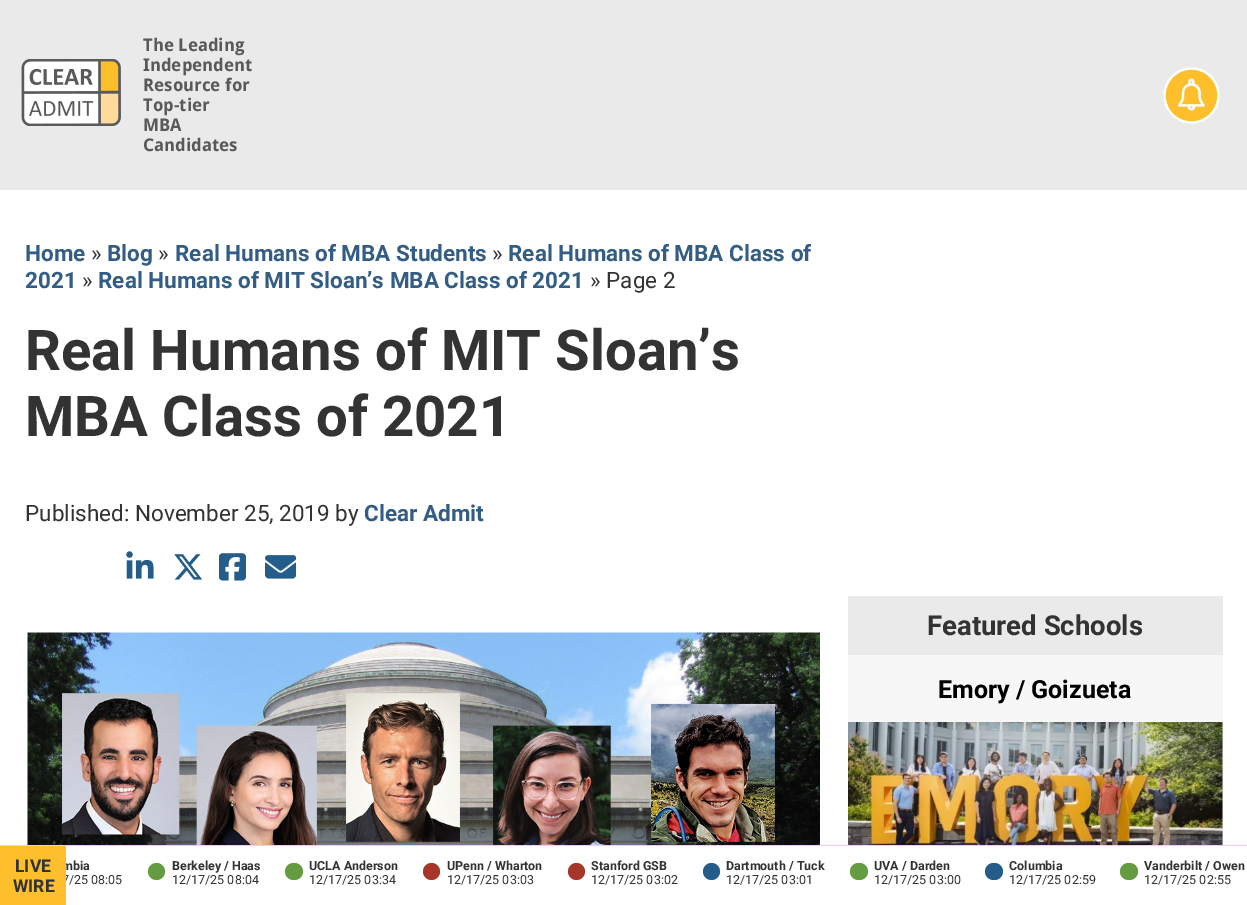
%!PS
<< /PageSize [1247 905] >> setpagedevice
/fl/fill load def
/co { dup -16 bitshift 255 div exch dup -8 bitshift 255 and 255 div exch 255 and 255 div setrgbcolor } def
/fn { [ exch dup neg 0 0 3 -1 roll 0 0 ] selectfont } def
/tx { co fn moveto show } def
/bx { co rectfill } def
/ci { newpath 0 360 arc closepath } def
/rr { 5 dict begin { /r /h /w /y /x } { exch def } forall
  x r add y moveto x w add y 2 copy h add r arct x w add y h add x 1 index r arct
  x y h add x y r arct x y 2 copy exch w add exch r arct closepath end } def
/im { 5 dict begin { /h /w /y /x /name } { exch def } forall
  gsave x y translate w h scale
  w h 8 [w 0 0 h 0 0] name (r) file false 3 colorimage grestore end } def
0 905 translate 1 -1 scale
4 setmiterlimit
0 0 1247 905 16#FFFFFF bx
0 0 1247 190 16#EAEAEA bx
(media/1.raw) 21 59 100 67 im
(media/2.raw) 1163 67 57 57 im
(media/3.raw) 126 551 28 28 im
(media/4.raw) 174 554 29 26 im
(media/5.raw) 219 553 27 28 im
(media/6.raw) 265 555 31 24 im
(media/7.raw) 27 632 793 213 im
848 655 375 190 16#F7F7F7 bx
848 596 375 59 16#EAEAEA bx
(media/8.raw) 848 722 375 123 im
0 845 1247 1 16#F5D99D bx
16#669C41 co
156.5 871.5 8.5 ci fl
285 863 18 17 8.5 rr fl
16#A6352A co
431.5 871.5 8.5 ci fl
576.5 871.5 8.5 ci fl
16#245D89 co
711.5 871.5 8.5 ci fl
16#669C41 co
850 863 18 17 8.5 rr fl
16#245D89 co
985 863 18 17 8.5 rr fl
16#669C41 co
1120 863 18 17 8.5 rr fl
(The Leading) 143 51 /DroidSans-Bold 17.5 16#59595C tx
(Independent) 143 71 /DroidSans-Bold 17.5 16#59595C tx
(Resource for) 143 91 /DroidSans-Bold 17.5 16#59595C tx
(Top-tier) 143 111 /DroidSans-Bold 17.5 16#59595C tx
(MBA) 143 131 /DroidSans-Bold 17.5 16#59595C tx
(Candidates) 143 151 /DroidSans-Bold 17.5 16#59595C tx
(Home) 25 261 /Roboto-Bold 22.5 16#335D84 tx
(») 91 261 /Roboto-Regular 22.5 16#333333 tx
(Blog) 107 261 /Roboto-Bold 22.5 16#335D84 tx
(») 158 261 /Roboto-Regular 22.5 16#333333 tx
(Real Humans of MBA Students) 175 261 /Roboto-Bold 22.5 16#335D84 tx
(») 492 261 /Roboto-Regular 22.5 16#333333 tx
(Real Humans of MBA Class of) 508 261 /Roboto-Bold 22.5 16#335D84 tx
(2021) 25 288 /Roboto-Bold 22.5 16#335D84 tx
(») 82 288 /Roboto-Regular 22.5 16#333333 tx
(Real Humans of MIT Sloan’s MBA Class of 2021) 98 288 /Roboto-Bold 22.5 16#335D84 tx
(» Page 2) 590 288 /Roboto-Regular 22.5 16#333333 tx
(Real Humans of MIT Sloan’s) 25 370 /Roboto-Bold 56.25 16#333333 tx
(MBA Class of 2021) 25 436 /Roboto-Bold 56.25 16#333333 tx
(Published: November 25, 2019 by) 25 521 /Roboto-Regular 22.5 16#333333 tx
(Clear Admit) 364 521 /Roboto-Bold 22.5 16#335D84 tx
(Featured Schools) 927 635 /Roboto-Bold 27.5 16#333333 tx
(Emory / Goizueta) 938 698 /Roboto-Bold 25 16#000000 tx
(mbia) 62 870 /Roboto-Bold 12.5 16#333333 tx
(7/25 08:05) 62 884 /Roboto-Regular 12.5 16#333333 tx
0 846 66 59 16#FDC02C bx
(WIRE) 13 892 /Roboto-Bold 17.5 16#333333 tx
(LIVE) 15 872 /Roboto-Bold 17.5 16#333333 tx
(Berkeley / Haas) 172 870 /Roboto-Bold 12.5 16#333333 tx
(12/17/25 08:04) 172 884 /Roboto-Regular 12.5 16#333333 tx
(UCLA Anderson) 309 870 /Roboto-Bold 12.5 16#333333 tx
(12/17/25 03:34) 309 884 /Roboto-Regular 12.5 16#333333 tx
(UPenn / Wharton) 447 870 /Roboto-Bold 12.5 16#333333 tx
(12/17/25 03:03) 447 884 /Roboto-Regular 12.5 16#333333 tx
(Stanford GSB) 591 870 /Roboto-Bold 12.5 16#333333 tx
(12/17/25 03:02) 591 884 /Roboto-Regular 12.5 16#333333 tx
(Dartmouth / Tuck) 726 870 /Roboto-Bold 12.5 16#333333 tx
(12/17/25 03:01) 726 884 /Roboto-Regular 12.5 16#333333 tx
(UVA / Darden) 874 870 /Roboto-Bold 12.5 16#333333 tx
(12/17/25 03:00) 874 884 /Roboto-Regular 12.5 16#333333 tx
(Columbia) 1009 870 /Roboto-Bold 12.5 16#333333 tx
(12/17/25 02:59) 1009 884 /Roboto-Regular 12.5 16#333333 tx
(Vanderbilt / Owen) 1144 870 /Roboto-Bold 12.5 16#333333 tx
(12/17/25 02:55) 1144 884 /Roboto-Regular 12.5 16#333333 tx
showpage
